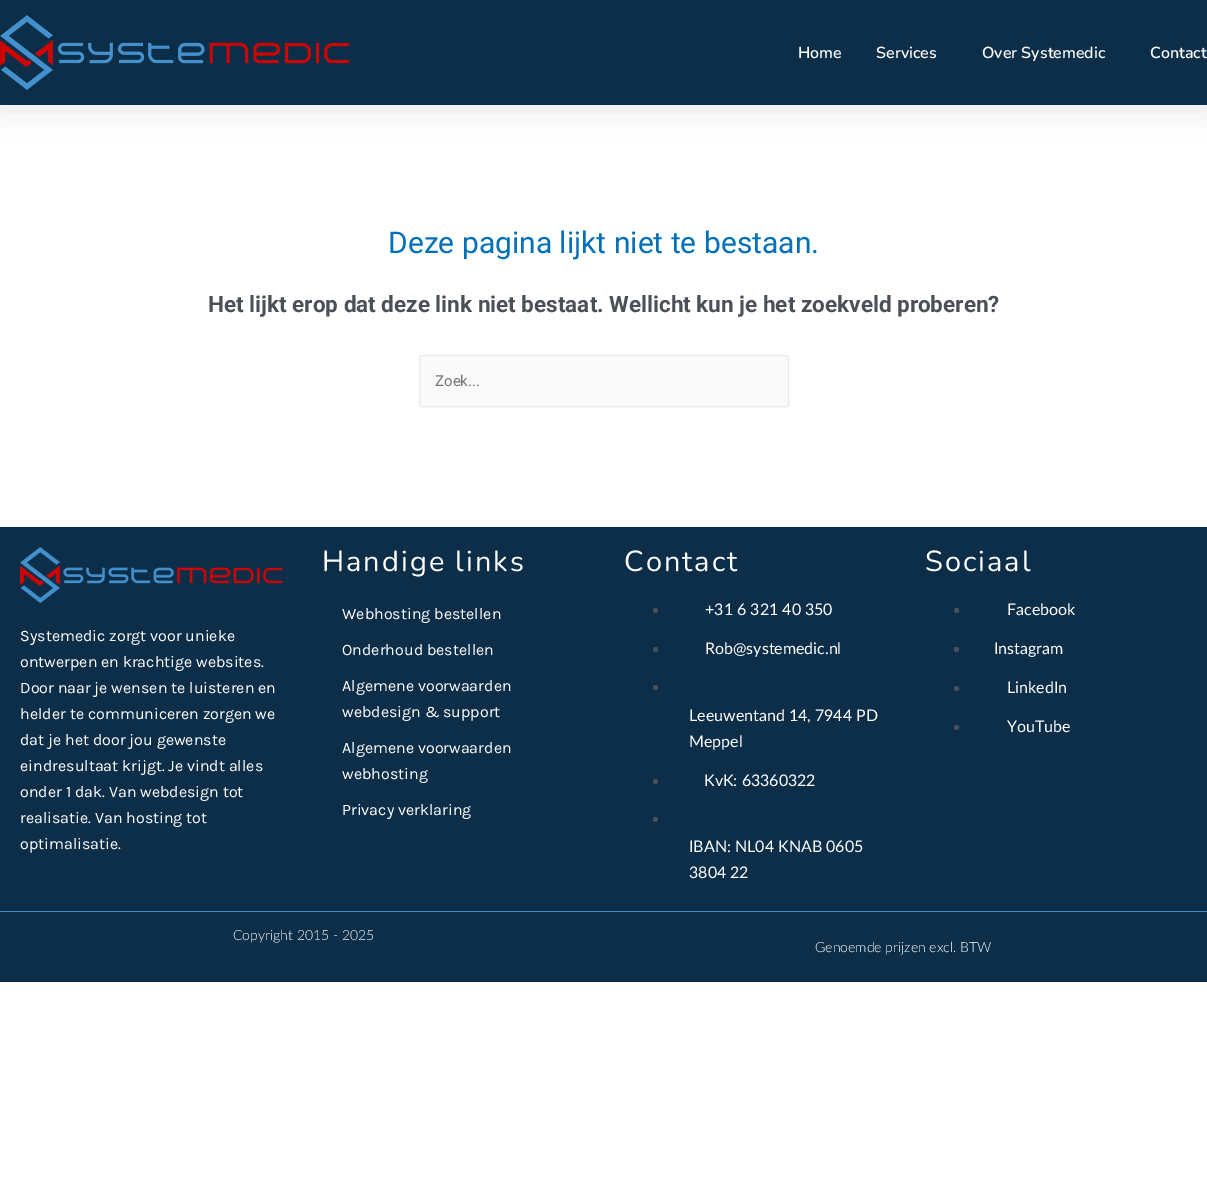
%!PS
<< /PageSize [1207 1203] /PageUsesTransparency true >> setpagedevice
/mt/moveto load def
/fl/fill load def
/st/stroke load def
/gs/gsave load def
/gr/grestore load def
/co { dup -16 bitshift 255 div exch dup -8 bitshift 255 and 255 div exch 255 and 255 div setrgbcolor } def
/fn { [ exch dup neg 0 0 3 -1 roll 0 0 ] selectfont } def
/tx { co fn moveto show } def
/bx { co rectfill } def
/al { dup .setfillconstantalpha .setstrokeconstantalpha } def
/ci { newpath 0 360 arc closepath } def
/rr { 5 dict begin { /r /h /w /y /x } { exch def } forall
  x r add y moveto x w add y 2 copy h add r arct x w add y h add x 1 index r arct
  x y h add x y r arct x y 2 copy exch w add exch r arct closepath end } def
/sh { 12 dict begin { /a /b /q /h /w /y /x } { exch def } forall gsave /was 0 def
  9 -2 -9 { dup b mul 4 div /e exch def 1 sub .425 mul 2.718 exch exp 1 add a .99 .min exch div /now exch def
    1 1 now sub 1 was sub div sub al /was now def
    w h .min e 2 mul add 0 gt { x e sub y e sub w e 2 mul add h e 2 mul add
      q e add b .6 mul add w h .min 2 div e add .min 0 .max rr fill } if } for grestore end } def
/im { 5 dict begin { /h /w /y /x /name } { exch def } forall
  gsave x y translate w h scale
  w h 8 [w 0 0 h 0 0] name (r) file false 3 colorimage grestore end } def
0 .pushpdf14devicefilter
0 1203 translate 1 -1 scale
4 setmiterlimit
0 0 1207 1203 16#FFFFFF bx
16#000000 co
0 5 1207 105 0 15 .1 sh
0 0 1207 105 16#0C2E49 bx
(media/1.raw) 0 15 349 75 im
16#FAFAFA co
419.5 355.5 369 51 1.5 rr gs fl gr
16#EAEAEA co
st
0 527 1207 384 16#0C2E49 bx
(media/2.raw) 20 547 262 56 im
16#4B4F58 co
655.5 610.5 2.5 ci fl
655.5 649.5 2.5 ci fl
655.5 687.5 2.5 ci fl
655.5 781.5 2.5 ci fl
655.5 819.5 2.5 ci fl
956.5 610.5 2.5 ci fl
956.5 649.5 2.5 ci fl
956.5 688.5 2.5 ci fl
956.5 727.5 2.5 ci fl
0 912 1207 70 16#0C2E49 bx
0 911 1207 1 16#4490CD bx
(Home) 798 58 /Nunito-SemiBold 16 16#FFFFFF tx
(Services) 876 58 /Nunito-SemiBold 16 16#FFFFFF tx
(Over Systemedic) 982 58 /Nunito-SemiBold 16 16#FFFFFF tx
(Contact) 1150 58 /Nunito-SemiBold 16 16#FFFFFF tx
(Deze pagina lijkt niet te bestaan.) 388 253 /Roboto-Regular 30 16#0170B9 tx
(Het lijkt erop dat deze link niet bestaat. Wellicht kun je het zoekveld proberen?) 208 312 /Roboto-Bold 22.5 16#4B4F58 tx
(Zoek...) 435 386 /Roboto-Regular 15 16#757575 tx
(Systemedic zorgt voor unieke) 20 641 /Karla-Regular 16 16#FFFFFF tx
(ontwerpen en krachtige websites.) 20 667 /Karla-Regular 16 16#FFFFFF tx
(Door naar je wensen te luisteren en) 20 693 /Karla-Regular 16 16#FFFFFF tx
(helder te communiceren zorgen we) 20 719 /Karla-Regular 16 16#FFFFFF tx
(dat je het door jou gewenste) 20 745 /Karla-Regular 16 16#FFFFFF tx
(eindresultaat krijgt. Je vindt alles) 20 771 /Karla-Regular 16 16#FFFFFF tx
(onder 1 dak. Van webdesign tot) 20 797 /Karla-Regular 16 16#FFFFFF tx
(realisatie. Van hosting tot) 20 823 /Karla-Regular 16 16#FFFFFF tx
(optimalisatie.) 20 849 /Karla-Regular 16 16#FFFFFF tx
/Nunito-Regular 29 fn
322 571 mt 2 0 (Handige links) ashow
(Webhosting bestellen) 342 619 /Karla-Regular 16 16#FFFFFF tx
(Onderhoud bestellen) 342 655 /Karla-Regular 16 16#FFFFFF tx
(Algemene voorwaarden) 342 691 /Karla-Regular 16 16#FFFFFF tx
(webdesign & support) 342 717 /Karla-Regular 16 16#FFFFFF tx
(Algemene voorwaarden) 342 753 /Karla-Regular 16 16#FFFFFF tx
(webhosting) 342 779 /Karla-Regular 16 16#FFFFFF tx
(Privacy verklaring) 342 815 /Karla-Regular 16 16#FFFFFF tx
/Nunito-Regular 29 fn
624 571 mt 2 0 (Contact) ashow
(+31 6 321 40 350) 705 615 /Lato-Regular 16 16#FFFFFF tx
(Rob@systemedic.nl) 705 654 /Lato-Regular 16 16#FFFFFF tx
(Leeuwentand 14, 7944 PD) 689 721 /Lato-Regular 16 16#FFFFFF tx
(Meppel) 689 747 /Lato-Regular 16 16#FFFFFF tx
(KvK: 63360322) 704 786 /Lato-Regular 16 16#FFFFFF tx
(IBAN: NL04 KNAB 0605) 689 852 /Lato-Regular 16 16#FFFFFF tx
(3804 22) 689 878 /Lato-Regular 16 16#FFFFFF tx
/Nunito-Regular 29 fn
925 571 mt 2 0 (Sociaal) ashow
(Facebook) 1007 615 /Lato-Regular 16 16#FFFFFF tx
(Instagram) 994 654 /Lato-Regular 16 16#FFFFFF tx
(LinkedIn) 1007 693 /Lato-Regular 16 16#FFFFFF tx
(YouTube) 1007 732 /Lato-Regular 16 16#FFFFFF tx
(Copyright 2015 - 2025) 233 940 /Lato-Light 14 16#FFFFFF tx
(Genoemde prijzen excl. BTW) 815 952 /Lato-Light 14 16#FFFFFF tx
.poppdf14devicefilter showpage
